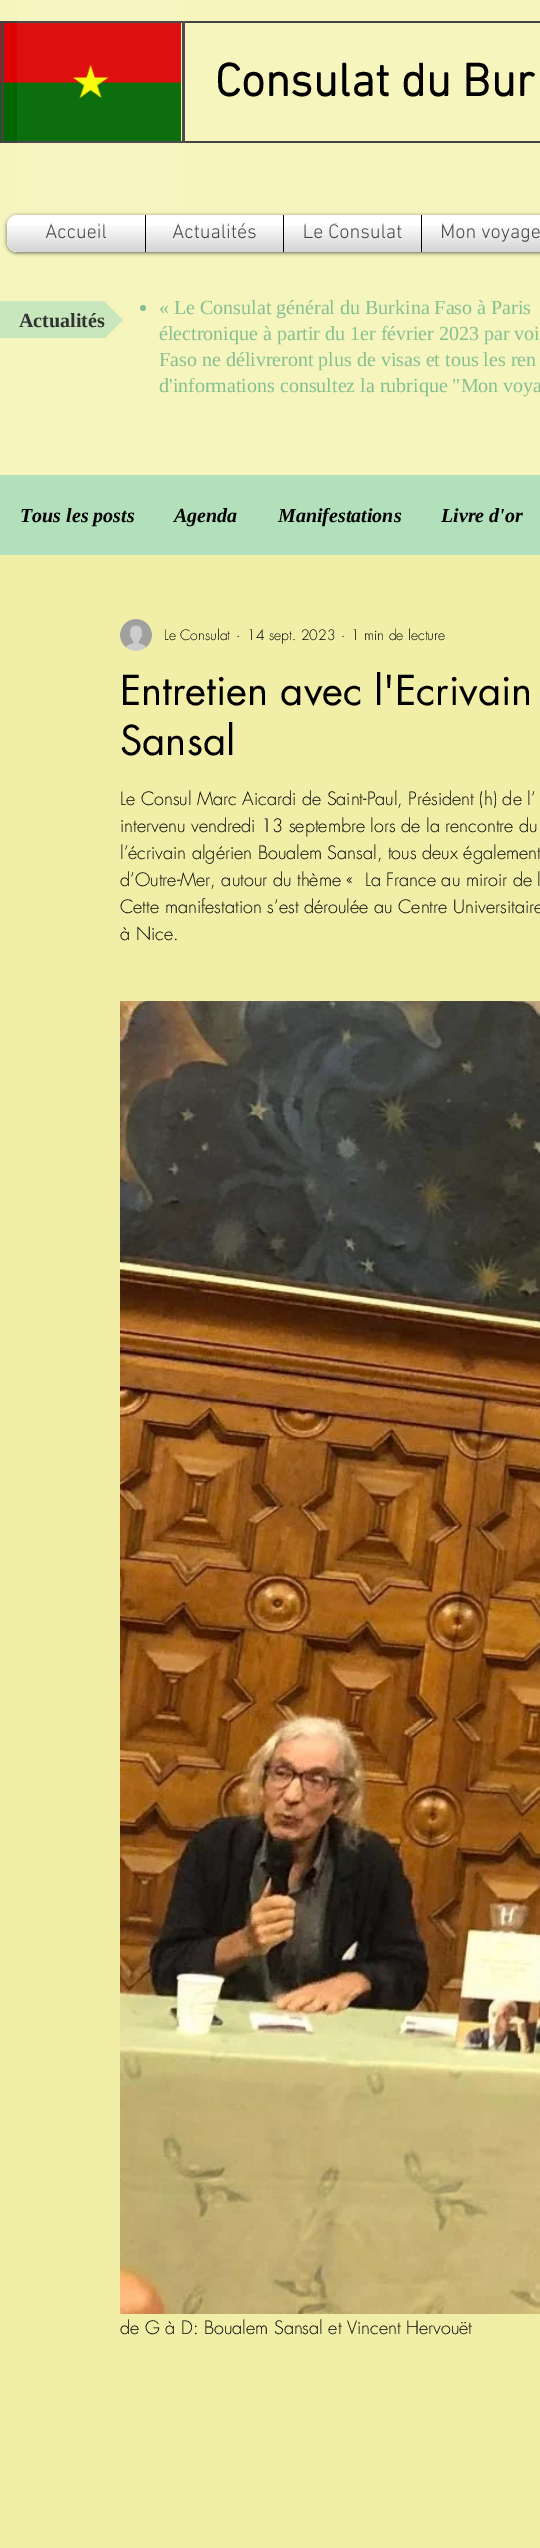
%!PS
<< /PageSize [540 2548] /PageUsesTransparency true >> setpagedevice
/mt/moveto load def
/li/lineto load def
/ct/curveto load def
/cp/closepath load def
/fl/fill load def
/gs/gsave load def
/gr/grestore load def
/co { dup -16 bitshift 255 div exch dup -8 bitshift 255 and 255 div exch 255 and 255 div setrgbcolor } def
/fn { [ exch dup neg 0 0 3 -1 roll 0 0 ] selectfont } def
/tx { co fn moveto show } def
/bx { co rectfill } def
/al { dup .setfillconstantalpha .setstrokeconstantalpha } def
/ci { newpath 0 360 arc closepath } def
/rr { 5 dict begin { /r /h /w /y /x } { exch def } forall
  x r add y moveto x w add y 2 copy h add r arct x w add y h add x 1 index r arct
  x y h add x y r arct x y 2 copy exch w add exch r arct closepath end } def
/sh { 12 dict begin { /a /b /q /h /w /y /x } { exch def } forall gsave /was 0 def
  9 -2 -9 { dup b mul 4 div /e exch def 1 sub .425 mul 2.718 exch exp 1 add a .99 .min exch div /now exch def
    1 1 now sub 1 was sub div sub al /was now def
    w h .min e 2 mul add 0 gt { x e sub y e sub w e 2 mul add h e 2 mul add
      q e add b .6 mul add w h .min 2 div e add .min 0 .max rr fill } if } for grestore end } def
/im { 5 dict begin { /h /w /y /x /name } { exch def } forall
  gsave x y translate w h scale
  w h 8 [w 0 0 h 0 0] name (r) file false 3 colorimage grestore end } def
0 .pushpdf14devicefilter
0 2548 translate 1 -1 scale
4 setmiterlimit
0 0 540 2548 16#F7F5BE bx
17 0 169 208 16#F7F6C1 bx
0 21 540 2 16#424242 bx
17 21 169 2 16#4B4B4B bx
(media/1.raw) 0 23 181 118 im
182 22 3 119 16#4B4B4B bx
0 141 540 2 16#424242 bx
1 23 3 120 16#424242 bx
17 141 169 2 16#4B4B4B bx
16#000000 co
7 216 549 37 10 2 .6 sh
(media/2.raw) 7 242 10 10 im
16#FFFFFF co
17 215 mt 145 215 li 145 252 li 17 252 li 11.5 252 7 247.5 7 242 ct 7 225 li 7 219.5 11.5 215 17 215 ct cp fl
146 215 137 37 16#FFFFFF bx
145 215 1 37 16#000000 bx
284 215 137 37 16#FFFFFF bx
283 215 1 37 16#000000 bx
422 215 118 37 16#FFFFFF bx
421 215 1 37 16#000000 bx
0 301 73 37 16#C8E7BC bx
gs
0 301 123 37 rectclip
123 320 mt 73 320 li 73 270 li cp 73 320 mt 123 320 li 73 370 li cp fl
gr
16#86C091 co
143 308 3 ci fl
0 555 540 1993 16#F1EEA7 bx
0 475 540 80 16#B2E0BB bx
(media/11.raw) 120 619 32 32 im
(media/12.raw) 120 1001 420 1313 im
(Consulat du Bur) 215 96 /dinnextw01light-Bold 47 16#000000 tx
(Accueil) 45 238 /dinnextw01light-Bold 20 16#383838 tx
(media/3.raw) 46 224 60 14 im
(media/4.raw) 7 226 138 26 im
(Actualités) 172 238 /dinnextw01light-Bold 20 16#383838 tx
(media/5.raw) 173 224 83 14 im
(media/6.raw) 146 226 137 26 im
(Le Consulat) 303 238 /dinnextw01light-Bold 20 16#383838 tx
(media/7.raw) 304 224 98 14 im
(media/8.raw) 284 226 137 26 im
(Mon voyage) 440 238 /dinnextw01light-Bold 20 16#383838 tx
(media/9.raw) 442 224 98 18 im
(media/10.raw) 422 226 118 26 im
(Actualités) 19 327 /LiberationSerif-Bold 20 16#323232 tx
(« Le Consulat général du Burkina Faso à Paris) 159 314 /LiberationSerif-Regular 20 16#86C091 tx
(électronique à partir du 1er février 2023 par voi) 159 340 /LiberationSerif-Regular 20 16#86C091 tx
(Faso ne délivreront plus de visas et tous les ren) 159 366 /LiberationSerif-Regular 20 16#86C091 tx
(d'informations consultez la rubrique "Mon voya) 159 392 /LiberationSerif-Regular 20 16#86C091 tx
(Tous les posts) 20 522 /LiberationSerif-BoldItalic 20 16#000000 tx
(Agenda) 174 522 /LiberationSerif-BoldItalic 20 16#000000 tx
(Manifestations) 278 522 /LiberationSerif-BoldItalic 20 16#000000 tx
(Livre d'or) 441 522 /LiberationSerif-BoldItalic 20 16#000000 tx
(Le Consulat) 164 640 /futura-Light 14 16#000000 tx
(·) 236 640 /futura-Light 14 16#000000 tx
(14 sept. 2023) 247 640 /futura-Light 14 16#000000 tx
(·) 341 640 /futura-Light 14 16#000000 tx
(1 min de lecture) 351 640 /futura-Light 14 16#000000 tx
(Entretien avec l'Ecrivain) 120 705 /futura-Regular 40 16#000000 tx
(Sansal) 120 755 /futura-Regular 40 16#000000 tx
(Le Consul Marc Aicardi de Saint-Paul, Président \(h\) de l’) 120 805 /futura-Light 18 16#000000 tx
(intervenu vendredi 13 septembre lors de la rencontre du) 120 832 /futura-Light 18 16#000000 tx
(l’écrivain algérien Boualem Sansal, tous deux également) 120 859 /futura-Light 18 16#000000 tx
(d’Outre-Mer, autour du thème «  La France au miroir de l) 120 886 /futura-Light 18 16#000000 tx
(Cette manifestation s’est déroulée au Centre Universitaire) 120 913 /futura-Light 18 16#000000 tx
(à Nice.) 120 940 /futura-Light 18 16#000000 tx
(de G à D: Boualem Sansal et Vincent Hervouët) 120 2334 /futura-Light 18 16#000000 tx
.poppdf14devicefilter showpage
